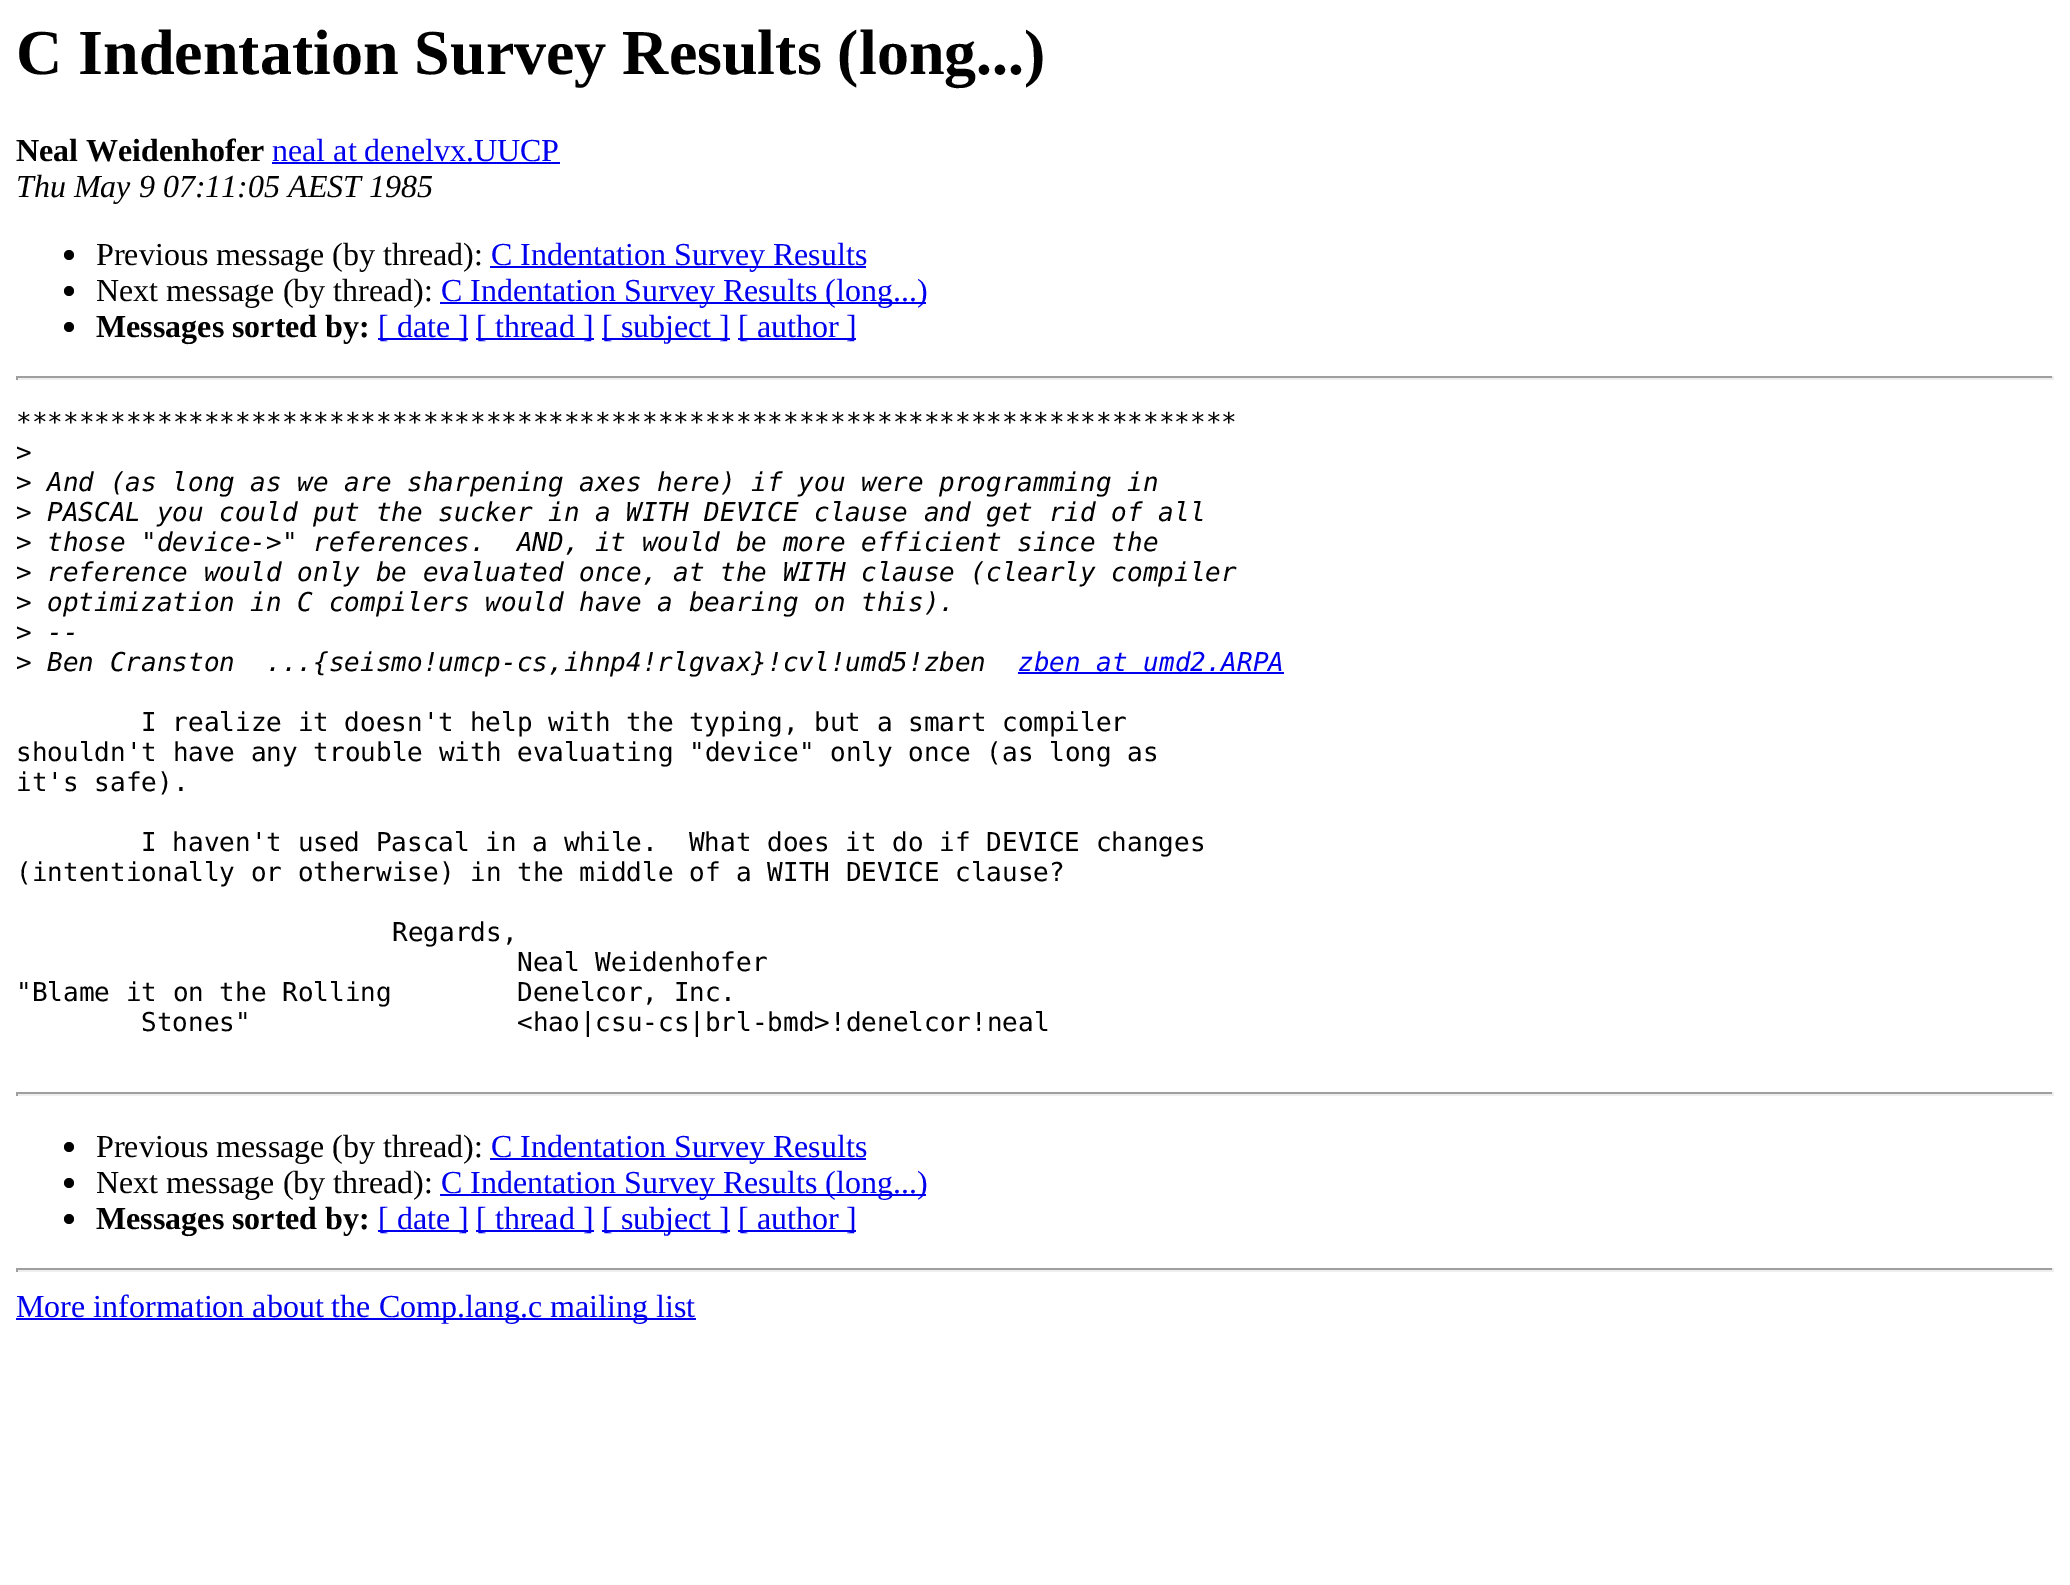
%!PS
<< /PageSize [2070 1585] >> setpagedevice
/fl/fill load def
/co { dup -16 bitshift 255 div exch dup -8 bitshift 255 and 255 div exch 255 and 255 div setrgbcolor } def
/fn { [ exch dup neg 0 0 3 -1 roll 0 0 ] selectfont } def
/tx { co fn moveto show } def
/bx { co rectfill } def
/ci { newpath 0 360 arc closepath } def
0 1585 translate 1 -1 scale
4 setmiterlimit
0 0 2070 1585 16#FFFFFF bx
272 162 288 2 16#0000EE bx
16#000000 co
69 255 5 ci fl
490 266 376 2 16#0000EE bx
16#000000 co
69 291 5 ci fl
440 302 486 2 16#0000EE bx
16#000000 co
69 327 5 ci fl
378 338 90 2 16#0000EE bx
476 338 118 2 16#0000EE bx
602 338 128 2 16#0000EE bx
738 338 118 2 16#0000EE bx
16 376 2038 2 16#9F9F9F bx
2052 376 2 4 16#EEEEEE bx
16 378 2038 2 16#EEEEEE bx
16 376 2 4 16#9F9F9F bx
1018 672 266 2 16#0000EE bx
16 1092 2038 2 16#9F9F9F bx
2052 1092 2 4 16#EEEEEE bx
16 1094 2038 2 16#EEEEEE bx
16 1092 2 4 16#9F9F9F bx
16#000000 co
69 1147 5 ci fl
490 1158 376 2 16#0000EE bx
16#000000 co
69 1183 5 ci fl
440 1194 486 2 16#0000EE bx
16#000000 co
69 1219 5 ci fl
378 1230 90 2 16#0000EE bx
476 1230 118 2 16#0000EE bx
602 1230 128 2 16#0000EE bx
738 1230 118 2 16#0000EE bx
16 1268 2038 2 16#9F9F9F bx
2052 1268 2 4 16#EEEEEE bx
16 1270 2038 2 16#EEEEEE bx
16 1268 2 4 16#9F9F9F bx
16 1318 680 2 16#0000EE bx
(C Indentation Survey Results \(long...\)) 16 74 /LiberationSerif-Bold 64 16#000000 tx
(Neal Weidenhofer) 16 161 /LiberationSerif-Bold 32 16#000000 tx
(neal at denelvx.UUCP) 272 161 /LiberationSerif-Regular 32 16#0000EE tx
(Thu May 9 07:11:05 AEST 1985) 16 197 /LiberationSerif-Italic 32 16#000000 tx
(Previous message \(by thread\):) 96 265 /LiberationSerif-Regular 32 16#000000 tx
(C Indentation Survey Results) 491 265 /LiberationSerif-Regular 32 16#0000EE tx
(Next message \(by thread\):) 96 301 /LiberationSerif-Regular 32 16#000000 tx
(C Indentation Survey Results \(long...\)) 441 301 /LiberationSerif-Regular 32 16#0000EE tx
(Messages sorted by:) 96 337 /LiberationSerif-Bold 32 16#000000 tx
([ date ]) 378 337 /LiberationSerif-Regular 32 16#0000EE tx
([ thread ]) 476 337 /LiberationSerif-Regular 32 16#0000EE tx
([ subject ]) 602 337 /LiberationSerif-Regular 32 16#0000EE tx
([ author ]) 738 337 /LiberationSerif-Regular 32 16#0000EE tx
(******************************************************************************) 16 431 /DejaVuSansMono-Regular 26 16#000000 tx
(>) 16 461 /DejaVuSansMono-Regular 26 16#000000 tx
(>) 16 491 /DejaVuSansMono-Regular 26 16#000000 tx
(And \(as long as we are sharpening axes here\) if you were programming in) 47 491 /DejaVuSansMono-Italic 26 16#000000 tx
(>) 16 521 /DejaVuSansMono-Regular 26 16#000000 tx
(PASCAL you could put the sucker in a WITH DEVICE clause and get rid of all) 47 521 /DejaVuSansMono-Italic 26 16#000000 tx
(>) 16 551 /DejaVuSansMono-Regular 26 16#000000 tx
(those "device->" references.  AND, it would be more efficient since the) 47 551 /DejaVuSansMono-Italic 26 16#000000 tx
(>) 16 581 /DejaVuSansMono-Regular 26 16#000000 tx
(reference would only be evaluated once, at the WITH clause \(clearly compiler) 47 581 /DejaVuSansMono-Italic 26 16#000000 tx
(>) 16 611 /DejaVuSansMono-Regular 26 16#000000 tx
(optimization in C compilers would have a bearing on this\).) 47 611 /DejaVuSansMono-Italic 26 16#000000 tx
(>) 16 641 /DejaVuSansMono-Regular 26 16#000000 tx
(--) 47 641 /DejaVuSansMono-Italic 26 16#000000 tx
(>) 16 671 /DejaVuSansMono-Regular 26 16#000000 tx
(Ben Cranston  ...{seismo!umcp-cs,ihnp4!rlgvax}!cvl!umd5!zben) 47 671 /DejaVuSansMono-Italic 26 16#000000 tx
(zben at umd2.ARPA) 1018 671 /DejaVuSansMono-Italic 26 16#0000EE tx
(I realize it doesn't help with the typing, but a smart compiler) 141 731 /DejaVuSansMono-Regular 26 16#000000 tx
(shouldn't have any trouble with evaluating "device" only once \(as long as) 16 761 /DejaVuSansMono-Regular 26 16#000000 tx
(it's safe\).) 16 791 /DejaVuSansMono-Regular 26 16#000000 tx
(I haven't used Pascal in a while.  What does it do if DEVICE changes) 141 851 /DejaVuSansMono-Regular 26 16#000000 tx
(\(intentionally or otherwise\) in the middle of a WITH DEVICE clause?) 16 881 /DejaVuSansMono-Regular 26 16#000000 tx
(Regards,) 392 941 /DejaVuSansMono-Regular 26 16#000000 tx
(Neal Weidenhofer) 517 971 /DejaVuSansMono-Regular 26 16#000000 tx
("Blame it on the Rolling) 16 1001 /DejaVuSansMono-Regular 26 16#000000 tx
(Denelcor, Inc.) 517 1001 /DejaVuSansMono-Regular 26 16#000000 tx
(Stones") 141 1031 /DejaVuSansMono-Regular 26 16#000000 tx
(<hao|csu-cs|brl-bmd>!denelcor!neal) 517 1031 /DejaVuSansMono-Regular 26 16#000000 tx
(Previous message \(by thread\):) 96 1157 /LiberationSerif-Regular 32 16#000000 tx
(C Indentation Survey Results) 491 1157 /LiberationSerif-Regular 32 16#0000EE tx
(Next message \(by thread\):) 96 1193 /LiberationSerif-Regular 32 16#000000 tx
(C Indentation Survey Results \(long...\)) 441 1193 /LiberationSerif-Regular 32 16#0000EE tx
(Messages sorted by:) 96 1229 /LiberationSerif-Bold 32 16#000000 tx
([ date ]) 378 1229 /LiberationSerif-Regular 32 16#0000EE tx
([ thread ]) 476 1229 /LiberationSerif-Regular 32 16#0000EE tx
([ subject ]) 602 1229 /LiberationSerif-Regular 32 16#0000EE tx
([ author ]) 738 1229 /LiberationSerif-Regular 32 16#0000EE tx
(More information about the Comp.lang.c mailing list) 16 1317 /LiberationSerif-Regular 32 16#0000EE tx
showpage
